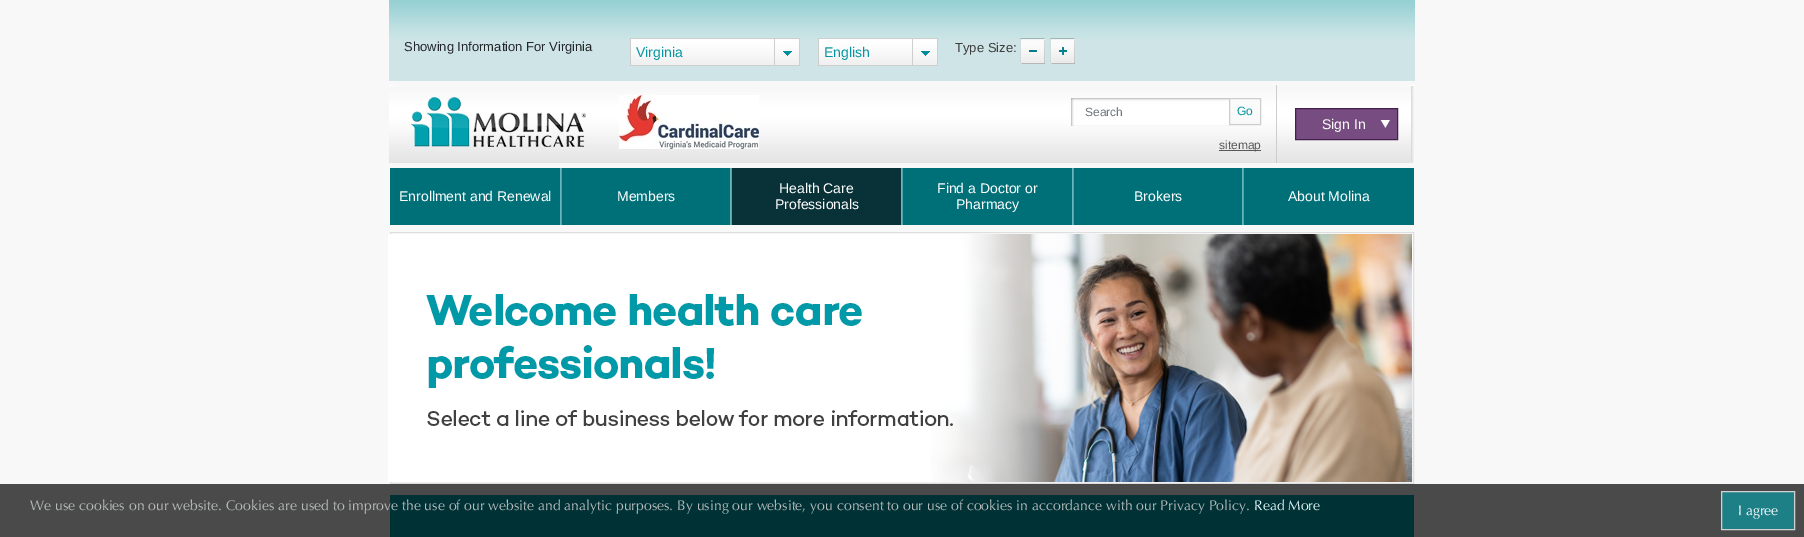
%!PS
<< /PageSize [1804 537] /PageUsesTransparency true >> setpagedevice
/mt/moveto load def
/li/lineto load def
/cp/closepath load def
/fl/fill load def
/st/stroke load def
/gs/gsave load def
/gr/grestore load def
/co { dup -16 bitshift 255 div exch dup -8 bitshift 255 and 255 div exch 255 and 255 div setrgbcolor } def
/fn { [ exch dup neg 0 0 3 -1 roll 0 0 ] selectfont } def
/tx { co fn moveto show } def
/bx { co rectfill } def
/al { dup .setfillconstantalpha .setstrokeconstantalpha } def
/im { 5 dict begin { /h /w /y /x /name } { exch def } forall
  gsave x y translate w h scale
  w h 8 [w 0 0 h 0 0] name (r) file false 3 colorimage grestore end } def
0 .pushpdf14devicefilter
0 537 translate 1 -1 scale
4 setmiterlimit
0 0 1804 537 16#F8F8F8 bx
389 39 1026 42 16#CFE4E7 bx
(media/1.raw) 389 0 1026 39 im
(media/2.raw) 631 38 169 28 im
630 38 1 28 16#CCCCCC bx
(media/3.raw) 774 39 26 26 im
(media/4.raw) 819 38 119 28 im
818 38 1 28 16#CCCCCC bx
(media/3.raw) 912 39 26 26 im
(media/5.raw) 1020 38 25 26 im
(media/6.raw) 1050 38 25 26 im
389 85 1026 78 16#FFFFFF bx
(media/7.raw) 389 85 1026 78 im
(media/8.raw) 410 97 176 50 im
(media/9.raw) 619 95 140 54 im
(media/10.raw) 1071 98 159 28 im
(media/11.raw) 1230 99 30 25 im
16#CDCDCD co
1229.5 98.5 31 26 rectstroke
1219 150 42 1 16#595959 bx
1276 85 1 78 16#CDCDCD bx
16#774C81 co
1295.5 108.5 mt 1397.5 108.5 li 1397.5 139.5 li 1295.5 139.5 li cp gs fl gr
16#44204D co
st
(media/12.raw) 1380 120 10 8 im
390 168 170 57 16#007078 bx
560 168 1 57 16#68B6BC bx
562 168 168 57 16#007078 bx
730 168 1 57 16#68B6BC bx
561 168 1 57 16#53A1A9 bx
732 168 169 57 16#093238 bx
901 168 1 57 16#68B6BC bx
731 168 1 57 16#53A1A9 bx
903 168 169 57 16#007078 bx
1072 168 1 57 16#68B6BC bx
902 168 1 57 16#53A1A9 bx
1074 168 168 57 16#007078 bx
1242 168 1 57 16#68B6BC bx
1073 168 1 57 16#53A1A9 bx
1244 168 170 57 16#007078 bx
1243 168 1 57 16#53A1A9 bx
391 349 1022 134 16#EFEFEF bx
(media/13.raw) 391 233 1022 116 im
16#DEDEDE co
390.5 232.5 1023 251 rectstroke
(media/14.raw) 388 234 1024 248 im
390 495 1024 42 16#01A3B2 bx
0.7 al
0 484 1804 53 16#000000 bx
1 al
1722 492 72 37 16#1E8087 bx
16#D1D1D1 co
1721.5 491.5 73 38 rectstroke
(Showing Information For Virginia) 404 51 /LiberationSans-Regular 13 16#212529 tx
(Virginia) 636 57 /LiberationSans-Regular 14 16#0395A2 tx
(English) 824 57 /LiberationSans-Regular 14 16#0395A2 tx
(Type Size:) 955 52 /LiberationSans-Regular 13 16#3D3D3D tx
(Search) 1085 116 /LiberationSans-Regular 12 16#6C757D tx
(Go) 1237 115 /LiberationSans-Regular 12 16#0395A2 tx
(sitemap) 1219 149 /LiberationSans-Regular 12 16#595959 tx
(Sign In) 1322 129 /LiberationSans-Regular 14 16#FFFFFF tx
(Enrollment and Renewal) 399 201 /LiberationSans-Regular 14 16#FFFFFF tx
(Members) 617 201 /LiberationSans-Regular 14 16#FFFFFF tx
(Health Care) 779 193 /LiberationSans-Regular 14 16#FFFFFF tx
(Professionals) 775 209 /LiberationSans-Regular 14 16#FFFFFF tx
(Find a Doctor or) 937 193 /LiberationSans-Regular 14 16#FFFFFF tx
(Pharmacy) 956 209 /LiberationSans-Regular 14 16#FFFFFF tx
(Brokers) 1134 201 /LiberationSans-Regular 14 16#FFFFFF tx
(About Molina) 1288 201 /LiberationSans-Regular 14 16#FFFFFF tx
(We use cookies on our website. Cookies are used to improve the use of our website and analytic purposes. By using our website, you consent to our use of cookies in accordance with our Privacy Policy.) 30 510 /Optima-Regular 14 16#B6BABB tx
(Read More) 1254 510 /Optima-Regular 14 16#E1F4F6 tx
(I agree) 1738 515 /Optima-Regular 14 16#FFFFFF tx
.poppdf14devicefilter showpage
